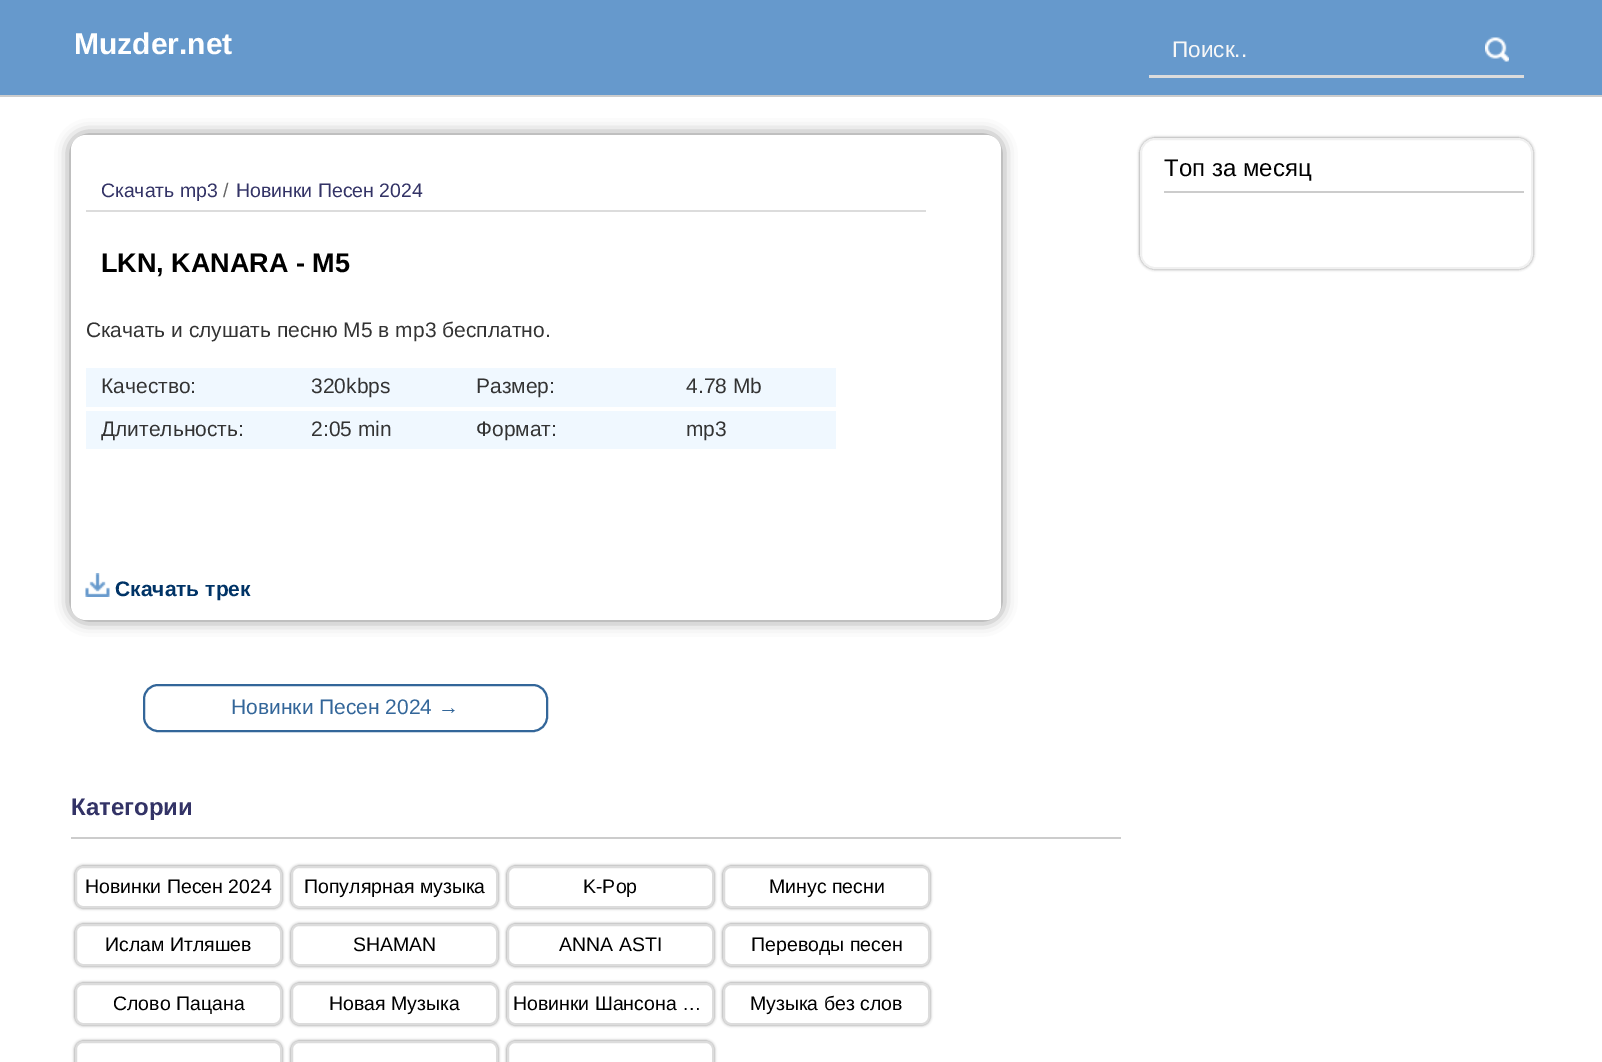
%!PS
<< /PageSize [1602 1062] /PageUsesTransparency true >> setpagedevice
/mt/moveto load def
/li/lineto load def
/ct/curveto load def
/cp/closepath load def
/fl/fill load def
/st/stroke load def
/gs/gsave load def
/gr/grestore load def
/lw/setlinewidth load def
/co { dup -16 bitshift 255 div exch dup -8 bitshift 255 and 255 div exch 255 and 255 div setrgbcolor } def
/fn { [ exch dup neg 0 0 3 -1 roll 0 0 ] selectfont } def
/tx { co fn moveto show } def
/bx { co rectfill } def
/al { dup .setfillconstantalpha .setstrokeconstantalpha } def
/rr { 5 dict begin { /r /h /w /y /x } { exch def } forall
  x r add y moveto x w add y 2 copy h add r arct x w add y h add x 1 index r arct
  x y h add x y r arct x y 2 copy exch w add exch r arct closepath end } def
/sh { 12 dict begin { /a /b /q /h /w /y /x } { exch def } forall gsave /was 0 def
  9 -2 -9 { dup b mul 4 div /e exch def 1 sub .425 mul 2.718 exch exp 1 add a .99 .min exch div /now exch def
    1 1 now sub 1 was sub div sub al /was now def
    w h .min e 2 mul add 0 gt { x e sub y e sub w e 2 mul add h e 2 mul add
      q e add b .6 mul add w h .min 2 div e add .min 0 .max rr fill } if } for grestore end } def
/im { 5 dict begin { /h /w /y /x /name } { exch def } forall
  gsave x y translate w h scale
  w h 8 [w 0 0 h 0 0] name (r) file false 3 colorimage grestore end } def
0 .pushpdf14devicefilter
0 1062 translate 1 -1 scale
4 setmiterlimit
0 0 1602 1062 16#FFFFFF bx
0 0 1602 95 16#6699CC bx
0 95 1602 2 16#CCCCCC bx
1149 75 375 3 16#DCDCDC bx
(media/1.raw) 1485 37 24 25 im
16#000000 co
1140 138 393 131 15 1.5 .5 sh
16#FFFFFF co
1141 139 391 129 14 rr gs fl gr
16#F0F0F0 co
2 lw
st
1164 191 360 2 16#CCCCCC bx
16#000000 co
71 135 930 485 15 7.5 .5 sh
16#FFFFFF co
71 135 930 485 15 rr fl
86 210 840 2 16#DCDCDC bx
86 368 750 39 16#F0F8FF bx
86 411 750 38 16#F0F8FF bx
(media/2.raw) 85 573 25 24 im
16#336699 co
144 685 403 46 14 rr st
71 837 1050 2 16#CCCCCC bx
gs
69 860 mt 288 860 li 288 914 li 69 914 li cp 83 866 mt 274 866 li 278.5 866 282 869.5 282 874 ct 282 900 li 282 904.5 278.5 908 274 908 ct 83 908 li 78.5 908 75 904.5 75 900 ct 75 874 li 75 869.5 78.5 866 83 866 ct cp eoclip newpath
16#000000 co
75 866 207 42 8 1.5 .5 sh
gr
16#DCDCDC co
76 867 205 40 7 rr st
gs
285 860 mt 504 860 li 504 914 li 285 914 li cp 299 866 mt 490 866 li 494.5 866 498 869.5 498 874 ct 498 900 li 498 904.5 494.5 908 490 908 ct 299 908 li 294.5 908 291 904.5 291 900 ct 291 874 li 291 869.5 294.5 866 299 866 ct cp eoclip newpath
16#000000 co
291 866 207 42 8 1.5 .5 sh
gr
292 867 205 40 7 rr st
gs
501 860 mt 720 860 li 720 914 li 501 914 li cp 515 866 mt 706 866 li 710.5 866 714 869.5 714 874 ct 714 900 li 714 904.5 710.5 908 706 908 ct 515 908 li 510.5 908 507 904.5 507 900 ct 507 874 li 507 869.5 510.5 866 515 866 ct cp eoclip newpath
16#000000 co
507 866 207 42 8 1.5 .5 sh
gr
508 867 205 40 7 rr st
gs
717 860 mt 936 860 li 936 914 li 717 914 li cp 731 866 mt 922 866 li 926.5 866 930 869.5 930 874 ct 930 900 li 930 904.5 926.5 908 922 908 ct 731 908 li 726.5 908 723 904.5 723 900 ct 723 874 li 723 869.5 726.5 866 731 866 ct cp eoclip newpath
16#000000 co
723 866 207 42 8 1.5 .5 sh
gr
724 867 205 40 7 rr st
gs
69 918 mt 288 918 li 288 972 li 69 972 li cp 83 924 mt 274 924 li 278.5 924 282 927.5 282 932 ct 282 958 li 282 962.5 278.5 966 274 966 ct 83 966 li 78.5 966 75 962.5 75 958 ct 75 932 li 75 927.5 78.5 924 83 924 ct cp eoclip newpath
16#000000 co
75 924 207 42 8 1.5 .5 sh
gr
76 925 205 40 7 rr st
gs
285 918 mt 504 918 li 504 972 li 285 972 li cp 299 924 mt 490 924 li 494.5 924 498 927.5 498 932 ct 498 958 li 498 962.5 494.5 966 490 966 ct 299 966 li 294.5 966 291 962.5 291 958 ct 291 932 li 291 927.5 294.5 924 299 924 ct cp eoclip newpath
16#000000 co
291 924 207 42 8 1.5 .5 sh
gr
292 925 205 40 7 rr st
gs
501 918 mt 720 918 li 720 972 li 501 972 li cp 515 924 mt 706 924 li 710.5 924 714 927.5 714 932 ct 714 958 li 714 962.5 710.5 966 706 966 ct 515 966 li 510.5 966 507 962.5 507 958 ct 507 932 li 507 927.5 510.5 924 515 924 ct cp eoclip newpath
16#000000 co
507 924 207 42 8 1.5 .5 sh
gr
508 925 205 40 7 rr st
gs
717 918 mt 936 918 li 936 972 li 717 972 li cp 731 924 mt 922 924 li 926.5 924 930 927.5 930 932 ct 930 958 li 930 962.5 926.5 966 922 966 ct 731 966 li 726.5 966 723 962.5 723 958 ct 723 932 li 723 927.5 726.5 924 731 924 ct cp eoclip newpath
16#000000 co
723 924 207 42 8 1.5 .5 sh
gr
724 925 205 40 7 rr st
gs
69 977 mt 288 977 li 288 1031 li 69 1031 li cp 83 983 mt 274 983 li 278.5 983 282 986.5 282 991 ct 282 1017 li 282 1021.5 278.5 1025 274 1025 ct 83 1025 li 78.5 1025 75 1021.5 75 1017 ct 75 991 li 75 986.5 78.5 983 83 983 ct cp eoclip newpath
16#000000 co
75 983 207 42 8 1.5 .5 sh
gr
76 984 205 40 7 rr st
gs
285 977 mt 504 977 li 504 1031 li 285 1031 li cp 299 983 mt 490 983 li 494.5 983 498 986.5 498 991 ct 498 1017 li 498 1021.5 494.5 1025 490 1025 ct 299 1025 li 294.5 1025 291 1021.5 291 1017 ct 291 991 li 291 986.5 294.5 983 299 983 ct cp eoclip newpath
16#000000 co
291 983 207 42 8 1.5 .5 sh
gr
292 984 205 40 7 rr st
gs
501 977 mt 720 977 li 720 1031 li 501 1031 li cp 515 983 mt 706 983 li 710.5 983 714 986.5 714 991 ct 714 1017 li 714 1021.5 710.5 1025 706 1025 ct 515 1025 li 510.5 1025 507 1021.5 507 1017 ct 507 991 li 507 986.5 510.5 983 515 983 ct cp eoclip newpath
16#000000 co
507 983 207 42 8 1.5 .5 sh
gr
508 984 205 40 7 rr st
gs
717 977 mt 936 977 li 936 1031 li 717 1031 li cp 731 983 mt 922 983 li 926.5 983 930 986.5 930 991 ct 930 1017 li 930 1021.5 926.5 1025 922 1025 ct 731 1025 li 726.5 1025 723 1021.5 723 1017 ct 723 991 li 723 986.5 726.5 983 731 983 ct cp eoclip newpath
16#000000 co
723 983 207 42 8 1.5 .5 sh
gr
724 984 205 40 7 rr st
gs
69 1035 mt 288 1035 li 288 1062 li 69 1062 li cp 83 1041 mt 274 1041 li 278.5 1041 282 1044.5 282 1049 ct 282 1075 li 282 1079.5 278.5 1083 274 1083 ct 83 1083 li 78.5 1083 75 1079.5 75 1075 ct 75 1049 li 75 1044.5 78.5 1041 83 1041 ct cp eoclip newpath
16#000000 co
75 1041 207 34 8 1.5 .5 sh
gr
76 1042 205 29 7 rr st
gs
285 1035 mt 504 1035 li 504 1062 li 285 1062 li cp 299 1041 mt 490 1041 li 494.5 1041 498 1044.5 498 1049 ct 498 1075 li 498 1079.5 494.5 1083 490 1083 ct 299 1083 li 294.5 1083 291 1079.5 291 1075 ct 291 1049 li 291 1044.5 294.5 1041 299 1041 ct cp eoclip newpath
16#000000 co
291 1041 207 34 8 1.5 .5 sh
gr
292 1042 205 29 7 rr st
gs
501 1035 mt 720 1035 li 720 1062 li 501 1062 li cp 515 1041 mt 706 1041 li 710.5 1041 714 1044.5 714 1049 ct 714 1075 li 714 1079.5 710.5 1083 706 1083 ct 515 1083 li 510.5 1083 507 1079.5 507 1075 ct 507 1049 li 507 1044.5 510.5 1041 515 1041 ct cp eoclip newpath
16#000000 co
507 1041 207 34 8 1.5 .5 sh
gr
508 1042 205 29 7 rr st
(Muzder.net) 74 54 /LiberationSans-Bold 30 16#FFFFFF tx
(Поиск..) 1172 57 /LiberationSans-Regular 22.5 16#F7F7F7 tx
(Топ за месяц) 1164 176 /LiberationSans-Regular 24 16#000000 tx
(Скачать mp3) 101 197 /LiberationSans-Regular 19.5 16#333366 tx
(/) 223 197 /LiberationSans-Regular 19.5 16#666666 tx
(Новинки Песен 2024) 236 197 /LiberationSans-Regular 19.5 16#333366 tx
(LKN, KANARA - М5) 101 272 /LiberationSans-Bold 27 16#000000 tx
(Скачать и слушать песню М5 в mp3 бесплатно.) 86 337 /LiberationSans-Regular 21 16#333333 tx
(Качество:) 101 393 /LiberationSans-Regular 21 16#333333 tx
(320kbps) 311 393 /LiberationSans-Regular 21 16#333333 tx
(Размер:) 476 393 /LiberationSans-Regular 21 16#333333 tx
(4.78 Mb) 686 393 /LiberationSans-Regular 21 16#333333 tx
(Длительность:) 101 436 /LiberationSans-Regular 21 16#333333 tx
(2:05 min) 311 436 /LiberationSans-Regular 21 16#333333 tx
(Формат:) 476 436 /LiberationSans-Regular 21 16#333333 tx
(mp3) 686 436 /LiberationSans-Regular 21 16#333333 tx
(Скачать трек) 115 596 /LiberationSans-Bold 21 16#003366 tx
(Новинки Песен 2024 →) 231 714 /LiberationSans-Regular 21 16#336699 tx
(Категории) 71 815 /LiberationSans-Bold 24 16#333366 tx
(Новинки Песен 2024) 85 893 /LiberationSans-Regular 19.5 16#000000 tx
(Популярная музыка) 304 893 /LiberationSans-Regular 19.5 16#000000 tx
(K-Pop) 583 893 /LiberationSans-Regular 19.5 16#000000 tx
(Минус песни) 769 893 /LiberationSans-Regular 19.5 16#000000 tx
(Ислам Итляшев) 105 951 /LiberationSans-Regular 19.5 16#000000 tx
(SHAMAN) 353 951 /LiberationSans-Regular 19.5 16#000000 tx
(ANNA ASTI) 559 951 /LiberationSans-Regular 19.5 16#000000 tx
(Переводы песен) 751 951 /LiberationSans-Regular 19.5 16#000000 tx
(Слово Пацана) 113 1010 /LiberationSans-Regular 19.5 16#000000 tx
(Новая Музыка) 329 1010 /LiberationSans-Regular 19.5 16#000000 tx
(Новинки Шансона …) 513 1010 /LiberationSans-Regular 19.5 16#000000 tx
(Музыка без слов) 750 1010 /LiberationSans-Regular 19.5 16#000000 tx
.poppdf14devicefilter showpage
